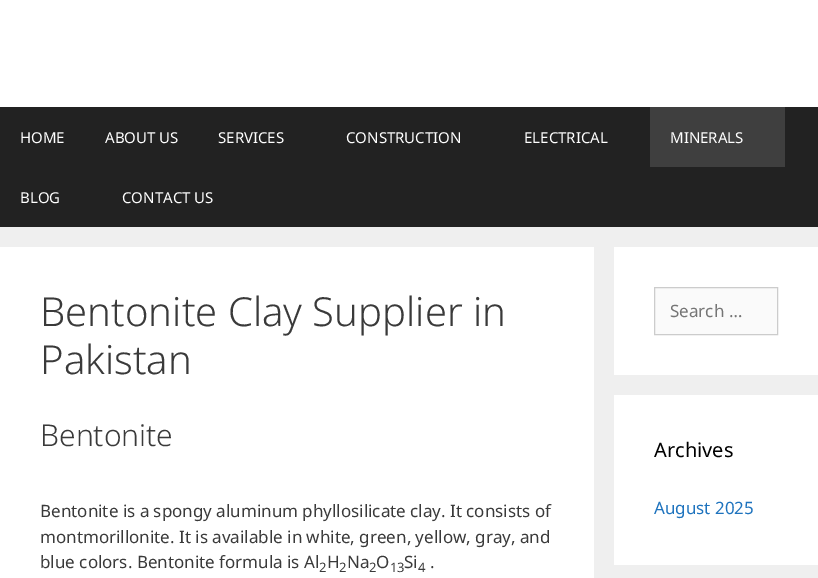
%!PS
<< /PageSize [818 578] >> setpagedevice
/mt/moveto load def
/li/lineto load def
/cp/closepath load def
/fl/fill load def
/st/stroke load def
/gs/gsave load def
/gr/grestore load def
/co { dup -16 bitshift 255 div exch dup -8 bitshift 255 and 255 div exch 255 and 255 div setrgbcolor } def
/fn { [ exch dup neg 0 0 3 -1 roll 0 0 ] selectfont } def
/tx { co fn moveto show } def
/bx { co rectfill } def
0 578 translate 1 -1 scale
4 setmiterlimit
0 0 818 578 16#EFEFEF bx
0 0 818 107 16#FFFFFF bx
0 107 818 120 16#222222 bx
650 107 135 60 16#3F3F3F bx
0 247 594 331 16#FFFFFF bx
614 247 204 128 16#FFFFFF bx
16#FAFAFA co
654.5 287.5 mt 777.5 287.5 li 777.5 334.5 li 654.5 334.5 li cp gs fl gr
16#CCCCCC co
st
614 395 204 170 16#FFFFFF bx
(HOME) 20 143 /NotoSans-Regular 15 16#FFFFFF tx
(ABOUT US) 105 143 /NotoSans-Regular 15 16#FFFFFF tx
(SERVICES) 218 143 /NotoSans-Regular 15 16#FFFFFF tx
(CONSTRUCTION) 346 143 /NotoSans-Regular 15 16#FFFFFF tx
(ELECTRICAL) 524 143 /NotoSans-Regular 15 16#FFFFFF tx
(MINERALS) 670 143 /NotoSans-Regular 15 16#FFFFFF tx
(BLOG) 20 203 /NotoSans-Regular 15 16#FFFFFF tx
(CONTACT US) 122 203 /NotoSans-Regular 15 16#FFFFFF tx
(Bentonite Clay Supplier in) 40 326 /NotoSans-Light 40 16#3A3A3A tx
(Pakistan) 40 374 /NotoSans-Light 40 16#3A3A3A tx
(Bentonite) 40 446 /NotoSans-Light 30 16#3A3A3A tx
(Bentonite is a spongy aluminum phyllosilicate clay. It consists of) 40 517 /NotoSans-Regular 17 16#3A3A3A tx
(montmorillonite. It is available in white, green, yellow, gray, and) 40 543 /NotoSans-Regular 17 16#3A3A3A tx
(blue colors. Bentonite formula is Al) 40 568 /NotoSans-Regular 17 16#3A3A3A tx
(2) 319 572 /NotoSans-Regular 13 16#3A3A3A tx
(H) 327 568 /NotoSans-Regular 17 16#3A3A3A tx
(2) 339 572 /NotoSans-Regular 13 16#3A3A3A tx
(Na) 347 568 /NotoSans-Regular 17 16#3A3A3A tx
(2) 369 572 /NotoSans-Regular 13 16#3A3A3A tx
(O) 376 568 /NotoSans-Regular 17 16#3A3A3A tx
(13) 390 572 /NotoSans-Regular 13 16#3A3A3A tx
(Si) 404 568 /NotoSans-Regular 17 16#3A3A3A tx
(4) 418 572 /NotoSans-Regular 13 16#3A3A3A tx
(.) 430 568 /NotoSans-Regular 17 16#3A3A3A tx
(Search …) 670 317 /NotoSans-Regular 17 16#757575 tx
(Archives) 654 457 /NotoSans-Regular 20 16#000000 tx
(August 2025) 654 514 /NotoSans-Regular 17 16#1E73BE tx
showpage
